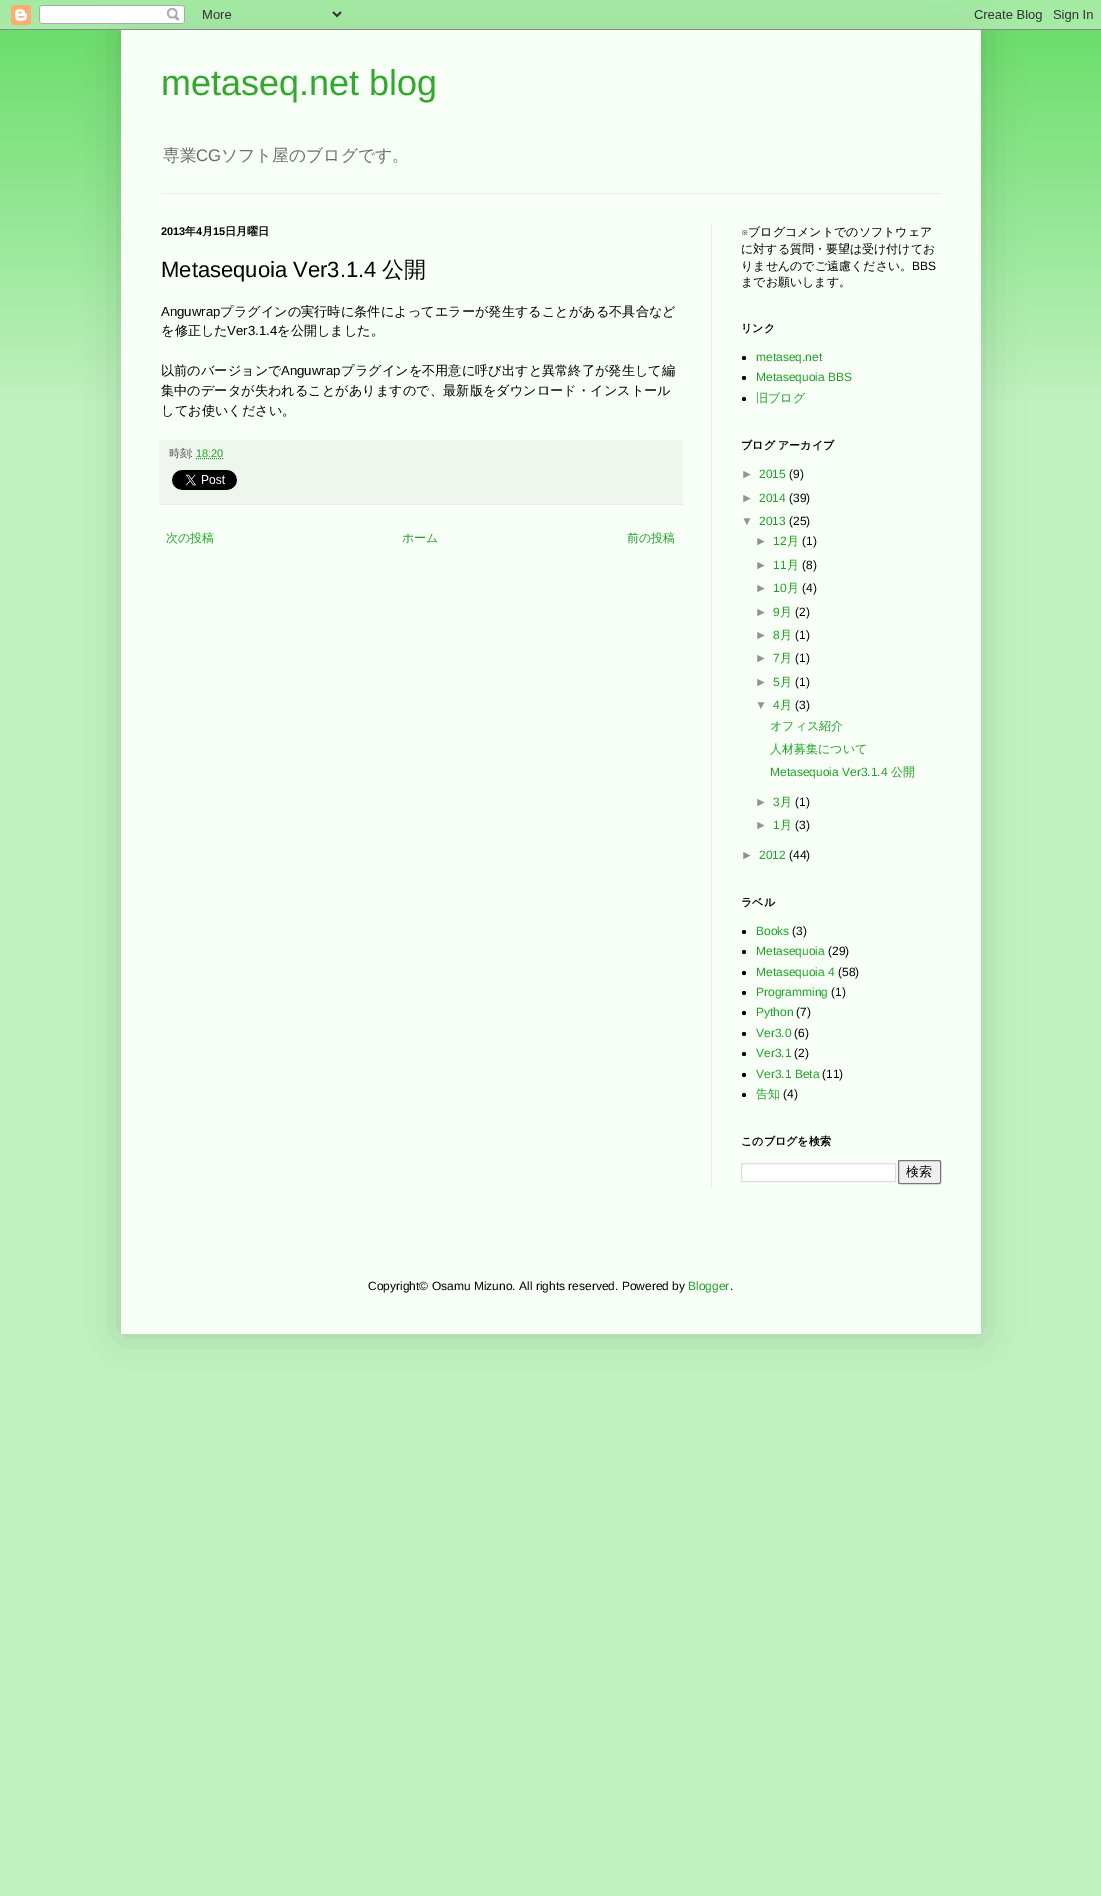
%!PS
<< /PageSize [1101 1896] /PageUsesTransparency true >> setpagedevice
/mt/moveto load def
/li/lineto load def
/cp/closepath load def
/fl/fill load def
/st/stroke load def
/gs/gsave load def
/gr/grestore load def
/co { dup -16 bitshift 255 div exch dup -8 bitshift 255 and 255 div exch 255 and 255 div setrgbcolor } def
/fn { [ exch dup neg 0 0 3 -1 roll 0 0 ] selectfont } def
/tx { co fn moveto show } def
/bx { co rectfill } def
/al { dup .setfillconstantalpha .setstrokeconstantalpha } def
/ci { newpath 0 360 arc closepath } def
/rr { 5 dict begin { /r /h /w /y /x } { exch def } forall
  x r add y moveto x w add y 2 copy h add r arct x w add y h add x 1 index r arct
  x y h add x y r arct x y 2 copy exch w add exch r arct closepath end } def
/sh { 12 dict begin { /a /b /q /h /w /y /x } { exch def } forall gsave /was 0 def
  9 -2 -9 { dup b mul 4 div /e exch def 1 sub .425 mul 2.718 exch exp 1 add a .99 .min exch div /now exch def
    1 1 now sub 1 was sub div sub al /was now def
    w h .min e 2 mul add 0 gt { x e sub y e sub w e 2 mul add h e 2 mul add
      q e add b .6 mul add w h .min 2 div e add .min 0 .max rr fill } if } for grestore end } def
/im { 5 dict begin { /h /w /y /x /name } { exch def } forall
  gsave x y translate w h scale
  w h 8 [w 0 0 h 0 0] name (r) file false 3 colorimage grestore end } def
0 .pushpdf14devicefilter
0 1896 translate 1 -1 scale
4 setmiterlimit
0 0 1101 1896 16#BFF2BF bx
0 0 1101 400 16#5CDA5C bx
(media/1.raw) 0 0 1101 400 im
16#000000 co
121 30 860 1304 0 20 .15 sh
(media/2.raw) 0 0 1101 30 im
121 30 860 1304 16#F7FFF7 bx
161 193 780 1 16#EBEBEB bx
711 224 1 964 16#EBEBEB bx
159 440 524 64 16#EEF6EE bx
159 504 524 1 16#EBEBEB bx
16#1DA324 co
[1 1] 0 setdash
196 458.5 mt 223 458.5 li st
(media/3.raw) 172 470 65 20 im
16#000000 co
744 358 2 ci fl
744 378 2 ci fl
744 399 2 ci fl
744 932 2 ci fl
744 952 2 ci fl
744 973 2 ci fl
744 993 2 ci fl
744 1013 2 ci fl
744 1034 2 ci fl
744 1054 2 ci fl
744 1075 2 ci fl
744 1095 2 ci fl
16#FFFFFF co
741.5 1163.5 mt 895.5 1163.5 li 895.5 1181.5 li 741.5 1181.5 li cp gs fl gr
16#DDDDDD co
[] 0 setdash
st
16#EFEFEF co
898.5 1160.5 42 23 1.5 rr gs fl gr
16#767676 co
st
(metaseq.net blog) 161 95 /LiberationSans-Regular 36 16#32A82D tx
(専業) 163 161 /WenQuanYiZenHei-Medium 16.75 16#6B6B6B tx
(CG) 196 161 /LiberationSans-Regular 16.75 16#6B6B6B tx
(ソフト屋のブログです。) 221 161 /WenQuanYiZenHei-Medium 16.75 16#6B6B6B tx
(2013) 161 235 /LiberationSans-Bold 11 16#000000 tx
(年) 185 235 /WenQuanYiZenHei-Bold 11 16#000000 tx
(4) 196 235 /LiberationSans-Bold 11 16#000000 tx
(月) 202 235 /WenQuanYiZenHei-Bold 11 16#000000 tx
(15) 213 235 /LiberationSans-Bold 11 16#000000 tx
(日月曜日) 225 235 /WenQuanYiZenHei-Bold 11 16#000000 tx
(Metasequoia Ver3.1.4) 161 277 /LiberationSans-Regular 22 16#000000 tx
(公開) 382 277 /WenQuanYiZenHei-Medium 22 16#000000 tx
(Anguwrap) 161 316 /LiberationSans-Regular 13.2 16#000000 tx
(プラグインの実行時に条件によってエラーが発生することがある不具合など) 220 316 /WenQuanYiZenHei-Medium 13.2 16#000000 tx
(を修正した) 161 335 /WenQuanYiZenHei-Medium 13.2 16#000000 tx
(Ver3.1.4) 227 335 /LiberationSans-Regular 13.2 16#000000 tx
(を公開しました。) 277 335 /WenQuanYiZenHei-Medium 13.2 16#000000 tx
(以前のバージョンで) 161 375 /WenQuanYiZenHei-Medium 13.2 16#000000 tx
(Anguwrap) 281 375 /LiberationSans-Regular 13.2 16#000000 tx
(プラグインを不用意に呼び出すと異常終了が発生して編) 341 375 /WenQuanYiZenHei-Medium 13.2 16#000000 tx
(集中のデータが失われることがありますので、最新版をダウンロード・インストール) 161 395 /WenQuanYiZenHei-Medium 13.2 16#000000 tx
(してお使いください。) 161 415 /WenQuanYiZenHei-Medium 13.2 16#000000 tx
(時刻) 169 457 /WenQuanYiZenHei-Medium 11 16#545454 tx
(:) 190 457 /LiberationSans-Regular 11 16#545454 tx
(18:20) 196 457 /LiberationSans-Regular 11 16#1DA324 tx
(次の投稿) 166 542 /WenQuanYiZenHei-Medium 12 16#1DA324 tx
(ホーム) 402 542 /WenQuanYiZenHei-Medium 12 16#1DA324 tx
(前の投稿) 627 542 /WenQuanYiZenHei-Medium 12 16#1DA324 tx
(※) 741 236 /FreeSans-Regular 12 16#000000 tx
(ブログコメントでのソフトウェア) 748 236 /WenQuanYiZenHei-Medium 12 16#000000 tx
(に対する質問・要望は受け付けてお) 741 253 /WenQuanYiZenHei-Medium 12 16#000000 tx
(りませんのでご遠慮ください。) 741 270 /WenQuanYiZenHei-Medium 12 16#000000 tx
(BBS) 912 270 /LiberationSans-Regular 12 16#000000 tx
(までお願いします。) 741 286 /WenQuanYiZenHei-Medium 12 16#000000 tx
(リンク) 741 332 /WenQuanYiZenHei-Bold 11 16#000000 tx
(metaseq.net) 756 361 /LiberationSans-Regular 12 16#1DA324 tx
(Metasequoia BBS) 756 381 /LiberationSans-Regular 12 16#1DA324 tx
(旧ブログ) 756 402 /WenQuanYiZenHei-Medium 12 16#1DA324 tx
(ブログ アーカイブ) 741 449 /WenQuanYiZenHei-Bold 11 16#000000 tx
(►) 741 478 /LiberationSans-Regular 12 16#929292 tx
(2015) 759 478 /LiberationSans-Regular 12 16#1DA324 tx
(\(9\)) 789 478 /LiberationSans-Regular 12 16#000000 tx
(►) 741 502 /LiberationSans-Regular 12 16#929292 tx
(2014) 759 502 /LiberationSans-Regular 12 16#1DA324 tx
(\(39\)) 789 502 /LiberationSans-Regular 12 16#000000 tx
(▼) 741 525 /LiberationSans-Regular 12 16#929292 tx
(2013) 759 525 /LiberationSans-Regular 12 16#1DA324 tx
(\(25\)) 789 525 /LiberationSans-Regular 12 16#000000 tx
(►) 755 545 /LiberationSans-Regular 12 16#929292 tx
(12) 773 545 /LiberationSans-Regular 12 16#1DA324 tx
(月) 787 545 /WenQuanYiZenHei-Medium 12 16#1DA324 tx
(\(1\)) 802 545 /LiberationSans-Regular 12 16#000000 tx
(►) 755 569 /LiberationSans-Regular 12 16#929292 tx
(11) 773 569 /LiberationSans-Regular 12 16#1DA324 tx
(月) 787 569 /WenQuanYiZenHei-Medium 12 16#1DA324 tx
(\(8\)) 802 569 /LiberationSans-Regular 12 16#000000 tx
(►) 755 592 /LiberationSans-Regular 12 16#929292 tx
(10) 773 592 /LiberationSans-Regular 12 16#1DA324 tx
(月) 787 592 /WenQuanYiZenHei-Medium 12 16#1DA324 tx
(\(4\)) 802 592 /LiberationSans-Regular 12 16#000000 tx
(►) 755 616 /LiberationSans-Regular 12 16#929292 tx
(9) 773 616 /LiberationSans-Regular 12 16#1DA324 tx
(月) 780 616 /WenQuanYiZenHei-Medium 12 16#1DA324 tx
(\(2\)) 795 616 /LiberationSans-Regular 12 16#000000 tx
(►) 755 639 /LiberationSans-Regular 12 16#929292 tx
(8) 773 639 /LiberationSans-Regular 12 16#1DA324 tx
(月) 780 639 /WenQuanYiZenHei-Medium 12 16#1DA324 tx
(\(1\)) 795 639 /LiberationSans-Regular 12 16#000000 tx
(►) 755 662 /LiberationSans-Regular 12 16#929292 tx
(7) 773 662 /LiberationSans-Regular 12 16#1DA324 tx
(月) 780 662 /WenQuanYiZenHei-Medium 12 16#1DA324 tx
(\(1\)) 795 662 /LiberationSans-Regular 12 16#000000 tx
(►) 755 686 /LiberationSans-Regular 12 16#929292 tx
(5) 773 686 /LiberationSans-Regular 12 16#1DA324 tx
(月) 780 686 /WenQuanYiZenHei-Medium 12 16#1DA324 tx
(\(1\)) 795 686 /LiberationSans-Regular 12 16#000000 tx
(▼) 755 709 /LiberationSans-Regular 12 16#929292 tx
(4) 773 709 /LiberationSans-Regular 12 16#1DA324 tx
(月) 780 709 /WenQuanYiZenHei-Medium 12 16#1DA324 tx
(\(3\)) 795 709 /LiberationSans-Regular 12 16#000000 tx
(オフィス紹介) 770 730 /WenQuanYiZenHei-Medium 12 16#1DA324 tx
(人材募集について) 770 753 /WenQuanYiZenHei-Medium 12 16#1DA324 tx
(Metasequoia Ver3.1.4) 770 776 /LiberationSans-Regular 12 16#1DA324 tx
(公開) 891 776 /WenQuanYiZenHei-Medium 12 16#1DA324 tx
(►) 755 806 /LiberationSans-Regular 12 16#929292 tx
(3) 773 806 /LiberationSans-Regular 12 16#1DA324 tx
(月) 780 806 /WenQuanYiZenHei-Medium 12 16#1DA324 tx
(\(1\)) 795 806 /LiberationSans-Regular 12 16#000000 tx
(►) 755 829 /LiberationSans-Regular 12 16#929292 tx
(1) 773 829 /LiberationSans-Regular 12 16#1DA324 tx
(月) 780 829 /WenQuanYiZenHei-Medium 12 16#1DA324 tx
(\(3\)) 795 829 /LiberationSans-Regular 12 16#000000 tx
(►) 741 859 /LiberationSans-Regular 12 16#929292 tx
(2012) 759 859 /LiberationSans-Regular 12 16#1DA324 tx
(\(44\)) 789 859 /LiberationSans-Regular 12 16#000000 tx
(ラベル) 741 906 /WenQuanYiZenHei-Bold 11 16#000000 tx
(Books) 756 935 /LiberationSans-Regular 12 16#1DA324 tx
(\(3\)) 792 935 /LiberationSans-Regular 12 16#000000 tx
(Metasequoia) 756 955 /LiberationSans-Regular 12 16#1DA324 tx
(\(29\)) 828 955 /LiberationSans-Regular 12 16#000000 tx
(Metasequoia 4) 756 976 /LiberationSans-Regular 12 16#1DA324 tx
(\(58\)) 838 976 /LiberationSans-Regular 12 16#000000 tx
(Programming) 756 996 /LiberationSans-Regular 12 16#1DA324 tx
(\(1\)) 831 996 /LiberationSans-Regular 12 16#000000 tx
(Python) 756 1016 /LiberationSans-Regular 12 16#1DA324 tx
(\(7\)) 796 1016 /LiberationSans-Regular 12 16#000000 tx
(Ver3.0) 756 1037 /LiberationSans-Regular 12 16#1DA324 tx
(\(6\)) 794 1037 /LiberationSans-Regular 12 16#000000 tx
(Ver3.1) 756 1057 /LiberationSans-Regular 12 16#1DA324 tx
(\(2\)) 794 1057 /LiberationSans-Regular 12 16#000000 tx
(Ver3.1 Beta) 756 1078 /LiberationSans-Regular 12 16#1DA324 tx
(\(11\)) 822 1078 /LiberationSans-Regular 12 16#000000 tx
(告知) 756 1098 /WenQuanYiZenHei-Medium 12 16#1DA324 tx
(\(4\)) 783 1098 /LiberationSans-Regular 12 16#000000 tx
(このブログを検索) 741 1145 /WenQuanYiZenHei-Bold 11 16#000000 tx
(検索) 906 1176 /WenQuanYiZenHei-Medium 13 16#000000 tx
(Copyright© Osamu Mizuno. All rights reserved. Powered by) 368 1290 /LiberationSans-Regular 12 16#000000 tx
(Blogger) 688 1290 /LiberationSans-Regular 12 16#1DA324 tx
(.) 730 1290 /LiberationSans-Regular 12 16#000000 tx
.poppdf14devicefilter showpage
